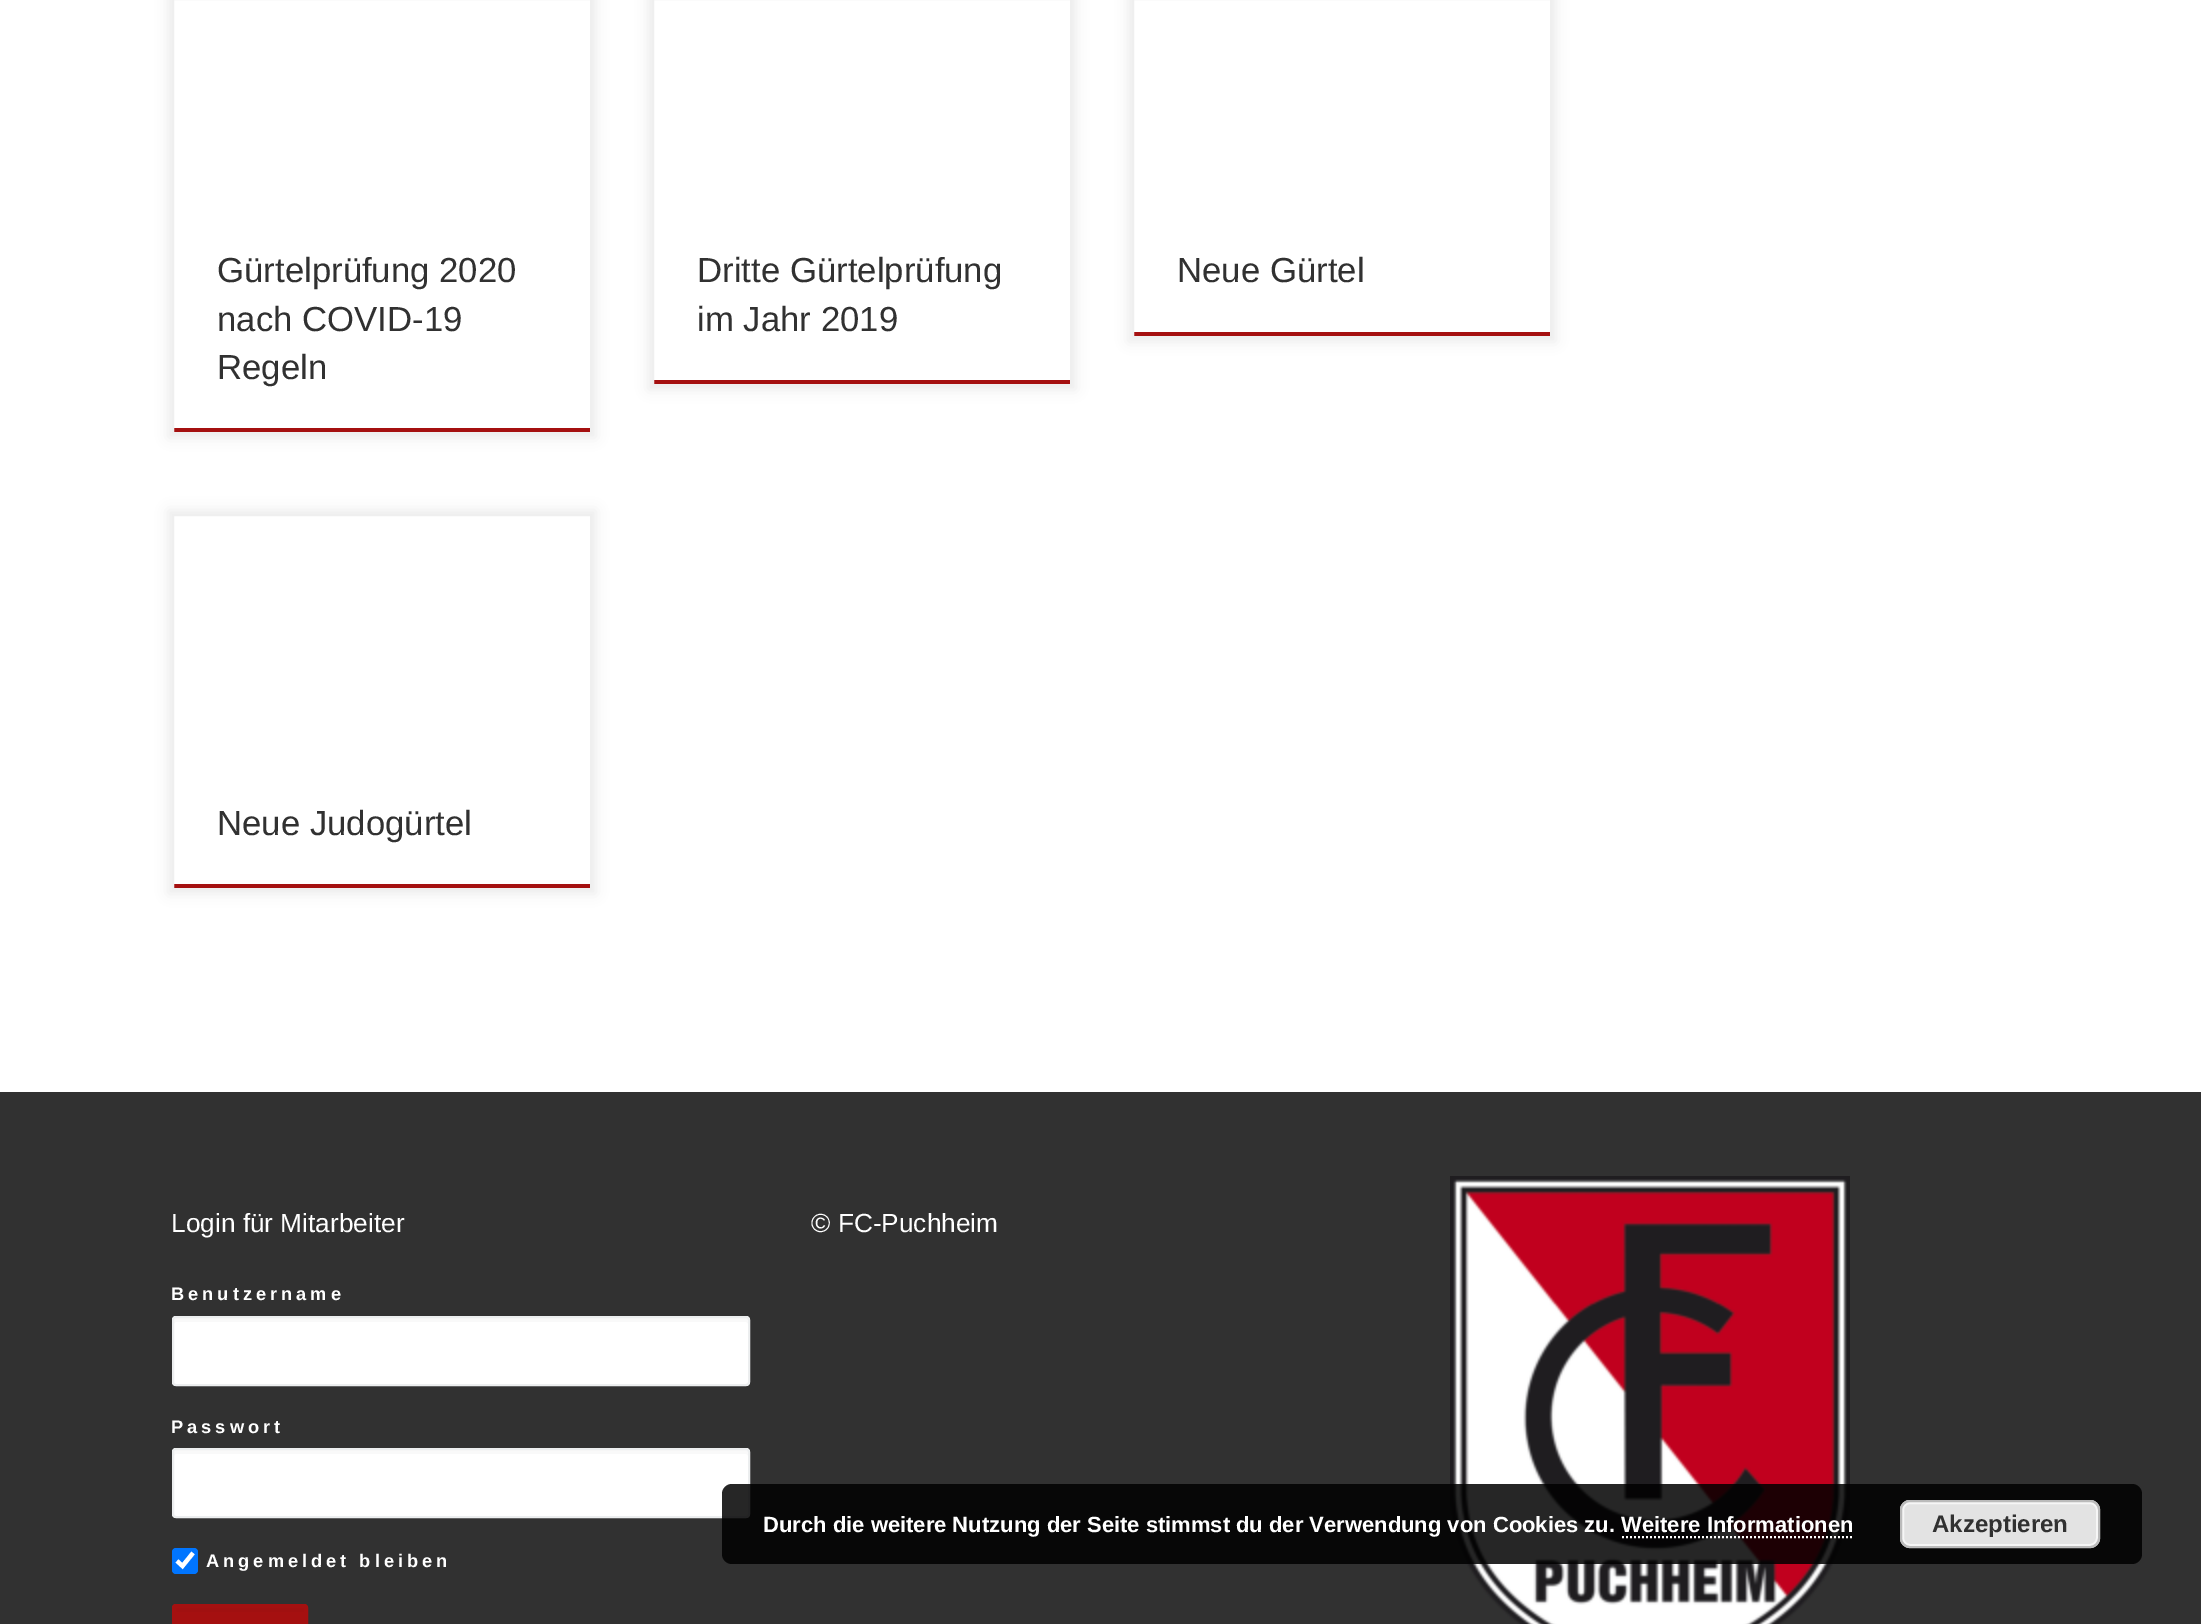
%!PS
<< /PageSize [2201 1624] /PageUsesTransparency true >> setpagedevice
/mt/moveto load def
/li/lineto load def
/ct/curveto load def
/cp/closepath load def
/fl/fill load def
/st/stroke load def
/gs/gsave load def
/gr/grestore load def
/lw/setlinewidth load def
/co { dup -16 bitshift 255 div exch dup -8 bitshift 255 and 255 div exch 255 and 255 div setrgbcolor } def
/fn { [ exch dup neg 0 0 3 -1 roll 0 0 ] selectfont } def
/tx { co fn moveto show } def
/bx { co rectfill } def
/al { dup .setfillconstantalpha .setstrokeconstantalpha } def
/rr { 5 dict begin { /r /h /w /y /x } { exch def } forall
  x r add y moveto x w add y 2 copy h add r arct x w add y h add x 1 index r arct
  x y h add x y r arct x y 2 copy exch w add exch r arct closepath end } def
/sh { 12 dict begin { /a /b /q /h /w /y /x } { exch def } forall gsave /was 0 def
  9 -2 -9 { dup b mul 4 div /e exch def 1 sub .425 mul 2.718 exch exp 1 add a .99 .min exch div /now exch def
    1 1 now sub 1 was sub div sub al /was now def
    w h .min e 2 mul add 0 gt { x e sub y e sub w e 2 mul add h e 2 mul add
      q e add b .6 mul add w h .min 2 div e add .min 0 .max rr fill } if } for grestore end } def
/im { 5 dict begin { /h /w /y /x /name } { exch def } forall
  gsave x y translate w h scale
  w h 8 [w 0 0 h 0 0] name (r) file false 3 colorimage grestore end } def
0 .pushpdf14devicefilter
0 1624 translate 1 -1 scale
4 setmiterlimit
0 0 2201 1624 16#FFFFFF bx
gs
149 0 mt 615 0 li 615 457 li 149 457 li cp 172 -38 mt 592 -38 li 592 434 li 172 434 li cp eoclip newpath
16#000000 co
168 -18 428 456 0 6 .07 sh
gr
172 428 420 4 16#A51010 bx
16#EFEFEF co
2 lw
173 -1 418 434 rectstroke
gs
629 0 mt 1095 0 li 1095 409 li 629 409 li cp 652 -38 mt 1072 -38 li 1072 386 li 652 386 li cp eoclip newpath
16#000000 co
648 -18 428 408 0 6 .07 sh
gr
652 380 420 4 16#A51010 bx
16#EFEFEF co
653 -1 418 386 rectstroke
gs
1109 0 mt 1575 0 li 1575 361 li 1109 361 li cp 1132 -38 mt 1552 -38 li 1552 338 li 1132 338 li cp eoclip newpath
16#000000 co
1128 -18 428 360 0 6 .07 sh
gr
1132 332 420 4 16#A51010 bx
16#EFEFEF co
1133 -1 418 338 rectstroke
gs
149 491 mt 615 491 li 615 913 li 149 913 li cp 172 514 mt 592 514 li 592 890 li 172 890 li cp eoclip newpath
16#000000 co
168 510 428 384 0 6 .07 sh
gr
172 884 420 4 16#A51010 bx
16#EFEFEF co
173 515 418 374 rectstroke
0 1092 2201 532 16#313131 bx
16#FFFFFF co
172 1316 578 70 4 rr fl
16#F9F9F9 co
176 1322 mt 746 1322 li 747 1322 748 1323 748 1324 ct 748 1320 li 748 1319 747 1318 746 1318 ct 176 1318 li 175 1318 174 1319 174 1320 ct 174 1324 li 174 1323 175 1322 176 1322 ct cp fl
16#ECEEEF co
173 1317 576 68 3 rr st
16#FFFFFF co
172 1448 578 70 4 rr fl
16#F9F9F9 co
176 1454 mt 746 1454 li 747 1454 748 1455 748 1456 ct 748 1452 li 748 1451 747 1450 746 1450 ct 176 1450 li 175 1450 174 1451 174 1452 ct 174 1456 li 174 1455 175 1454 176 1454 ct cp fl
16#ECEEEF co
173 1449 576 68 3 rr st
16#0075FF co
172 1548 26 26 4 rr fl
16#FFFFFF co
4.2 lw
177 1561 mt 182.5 1566 li 193 1553 li st
16#A51010 co
172 1604 136 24 4 rr fl
176 1608 128 4 16#A11010 bx
16#A51010 co
4 lw
174 1606 132 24 2 rr st
(media/1.raw) 1450 1176 400 448 im
0.85 al
16#000000 co
722 1484 1420 80 10 rr fl
1 al
16#E3E3E3 co
1900 1500 200 48 10 rr fl
16#F6F6F6 co
2 lw
1903 1503 194 42 7 rr st
16#BBBBBB co
1901 1501 198 46 9 rr st
16#FFFFFF co
[2 2] 0 setdash
1622 1537 mt 1854 1537 li st
(Gürtelprüfung 2020) 217 282 /LiberationSans-Regular 34.75 16#313131 tx
(nach COVID-19) 217 331 /LiberationSans-Regular 34.75 16#313131 tx
(Regeln) 217 379 /LiberationSans-Regular 34.75 16#313131 tx
(Dritte Gürtelprüfung) 697 282 /LiberationSans-Regular 34.75 16#313131 tx
(im Jahr 2019) 697 331 /LiberationSans-Regular 34.75 16#313131 tx
(Neue Gürtel) 1177 282 /LiberationSans-Regular 34.75 16#313131 tx
(Neue Judogürtel) 217 835 /LiberationSans-Regular 34.75 16#313131 tx
(Login für Mitarbeiter) 171 1232 /LiberationSans-Regular 26.25 16#FFFFFF tx
/LiberationSans-Bold 18.25 fn
171 1300 mt 4 0 (Benutzername) ashow
171 1433 mt 4 0 (Passwort) ashow
206 1567 mt 4 0 (Angemeldet bleiben) ashow
(© FC-Puchheim) 811 1232 /LiberationSans-Regular 26.25 16#FFFFFF tx
(Durch die weitere Nutzung der Seite stimmst du der Verwendung von Cookies zu. Weitere Informationen) 763 1532 /LiberationSans-Bold 22 16#FFFFFF tx
(Akzeptieren) 1932 1532 /LiberationSans-Bold 24 16#313131 tx
.poppdf14devicefilter showpage
